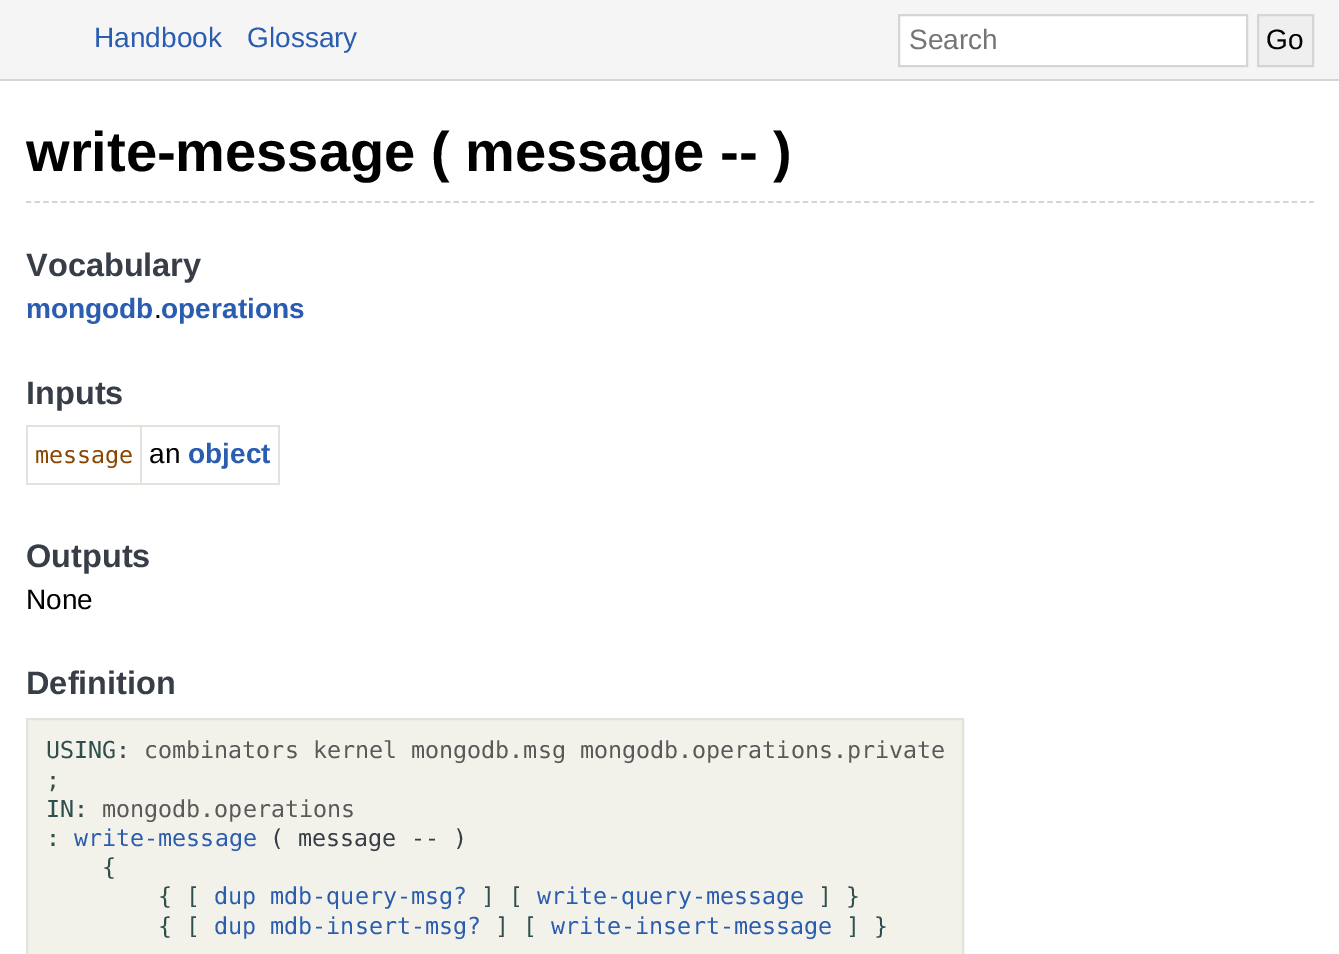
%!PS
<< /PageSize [1339 954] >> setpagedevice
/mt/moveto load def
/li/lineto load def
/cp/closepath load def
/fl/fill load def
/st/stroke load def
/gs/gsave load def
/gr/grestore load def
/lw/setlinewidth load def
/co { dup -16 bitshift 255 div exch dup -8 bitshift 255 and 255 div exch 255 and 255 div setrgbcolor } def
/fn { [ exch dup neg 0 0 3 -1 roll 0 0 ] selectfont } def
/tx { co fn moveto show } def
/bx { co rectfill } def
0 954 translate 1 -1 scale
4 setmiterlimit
0 0 1339 954 16#FFFFFF bx
0 0 1339 79 16#F5F5F5 bx
0 79 1339 2 16#D5D5D5 bx
16#FFFFFF co
899 15 mt 1247 15 li 1247 66 li 899 66 li cp gs fl gr
16#D5D5D5 co
2 lw
st
16#EFEFEF co
1258 15 mt 1313 15 li 1313 66 li 1258 66 li cp gs fl gr
16#D5D5D5 co
st
1.8 lw
[5.25 3.48] 0 setdash
26 202 mt 1314 202 li st
140 425 140 2 16#E3E2DB bx
278 425 2 60 16#E3E2DB bx
140 483 140 2 16#E3E2DB bx
140 425 2 60 16#E3E2DB bx
26 425 116 2 16#E3E2DB bx
26 483 116 2 16#E3E2DB bx
26 425 2 60 16#E3E2DB bx
16#F3F2EA co
27 719 mt 963 719 li 963 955 li 27 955 li cp gs fl gr
16#E3E2DB co
2 lw
[] 0 setdash
st
(Handbook) 94 47 /LiberationSans-Regular 28 16#2A5DB0 tx
(Glossary) 247 47 /LiberationSans-Regular 28 16#2A5DB0 tx
(Search) 909 49 /LiberationSans-Regular 28 16#757575 tx
(Go) 1266 49 /LiberationSans-Regular 28 16#000000 tx
(write-message \( message -- \)) 26 171 /LiberationSans-Bold 56 16#000000 tx
(Vocabulary) 26 276 /LiberationSans-Bold 32.5 16#373E48 tx
(mongodb operations) 26 318 /LiberationSans-Bold 28 16#2A5DB0 tx
(.) 154 318 /LiberationSans-Regular 28 16#000000 tx
(Inputs) 26 404 /LiberationSans-Bold 32.5 16#373E48 tx
(message) 35 463 /DejaVuSansMono-Regular 23.35 16#8B4500 tx
(an) 149 463 /LiberationSans-Regular 28 16#000000 tx
(object) 188 463 /LiberationSans-Bold 28 16#2A5DB0 tx
(Outputs) 26 567 /LiberationSans-Bold 32.5 16#373E48 tx
(None) 26 609 /LiberationSans-Regular 28 16#000000 tx
(Definition) 26 694 /LiberationSans-Bold 32.5 16#373E48 tx
(USING:) 46 758 /DejaVuSansMono-Regular 23.35 16#2F4F4F tx
(combinators kernel mongodb.msg mongodb.operations.private) 144 758 /DejaVuSansMono-Regular 23.35 16#595959 tx
(;) 46 788 /DejaVuSansMono-Regular 23.35 16#2F4F4F tx
(IN:) 46 817 /DejaVuSansMono-Regular 23.35 16#2F4F4F tx
(mongodb.operations) 102 817 /DejaVuSansMono-Regular 23.35 16#595959 tx
(:) 46 846 /DejaVuSansMono-Regular 23.35 16#2F4F4F tx
(write-message) 74 846 /DejaVuSansMono-Regular 23.35 16#2A5DB0 tx
(\( message -- \)) 270 846 /DejaVuSansMono-Regular 23.35 16#373E48 tx
({) 102 875 /DejaVuSansMono-Regular 23.35 16#2F4F4F tx
({ [) 158 904 /DejaVuSansMono-Regular 23.35 16#2F4F4F tx
(dup mdb-query-msg?) 214 904 /DejaVuSansMono-Regular 23.35 16#2A5DB0 tx
(] [) 481 904 /DejaVuSansMono-Regular 23.35 16#2F4F4F tx
(write-query-message) 537 904 /DejaVuSansMono-Regular 23.35 16#2A5DB0 tx
(] }) 818 904 /DejaVuSansMono-Regular 23.35 16#2F4F4F tx
({ [) 158 934 /DejaVuSansMono-Regular 23.35 16#2F4F4F tx
(dup mdb-insert-msg?) 214 934 /DejaVuSansMono-Regular 23.35 16#2A5DB0 tx
(] [) 495 934 /DejaVuSansMono-Regular 23.35 16#2F4F4F tx
(write-insert-message) 551 934 /DejaVuSansMono-Regular 23.35 16#2A5DB0 tx
(] }) 846 934 /DejaVuSansMono-Regular 23.35 16#2F4F4F tx
showpage
